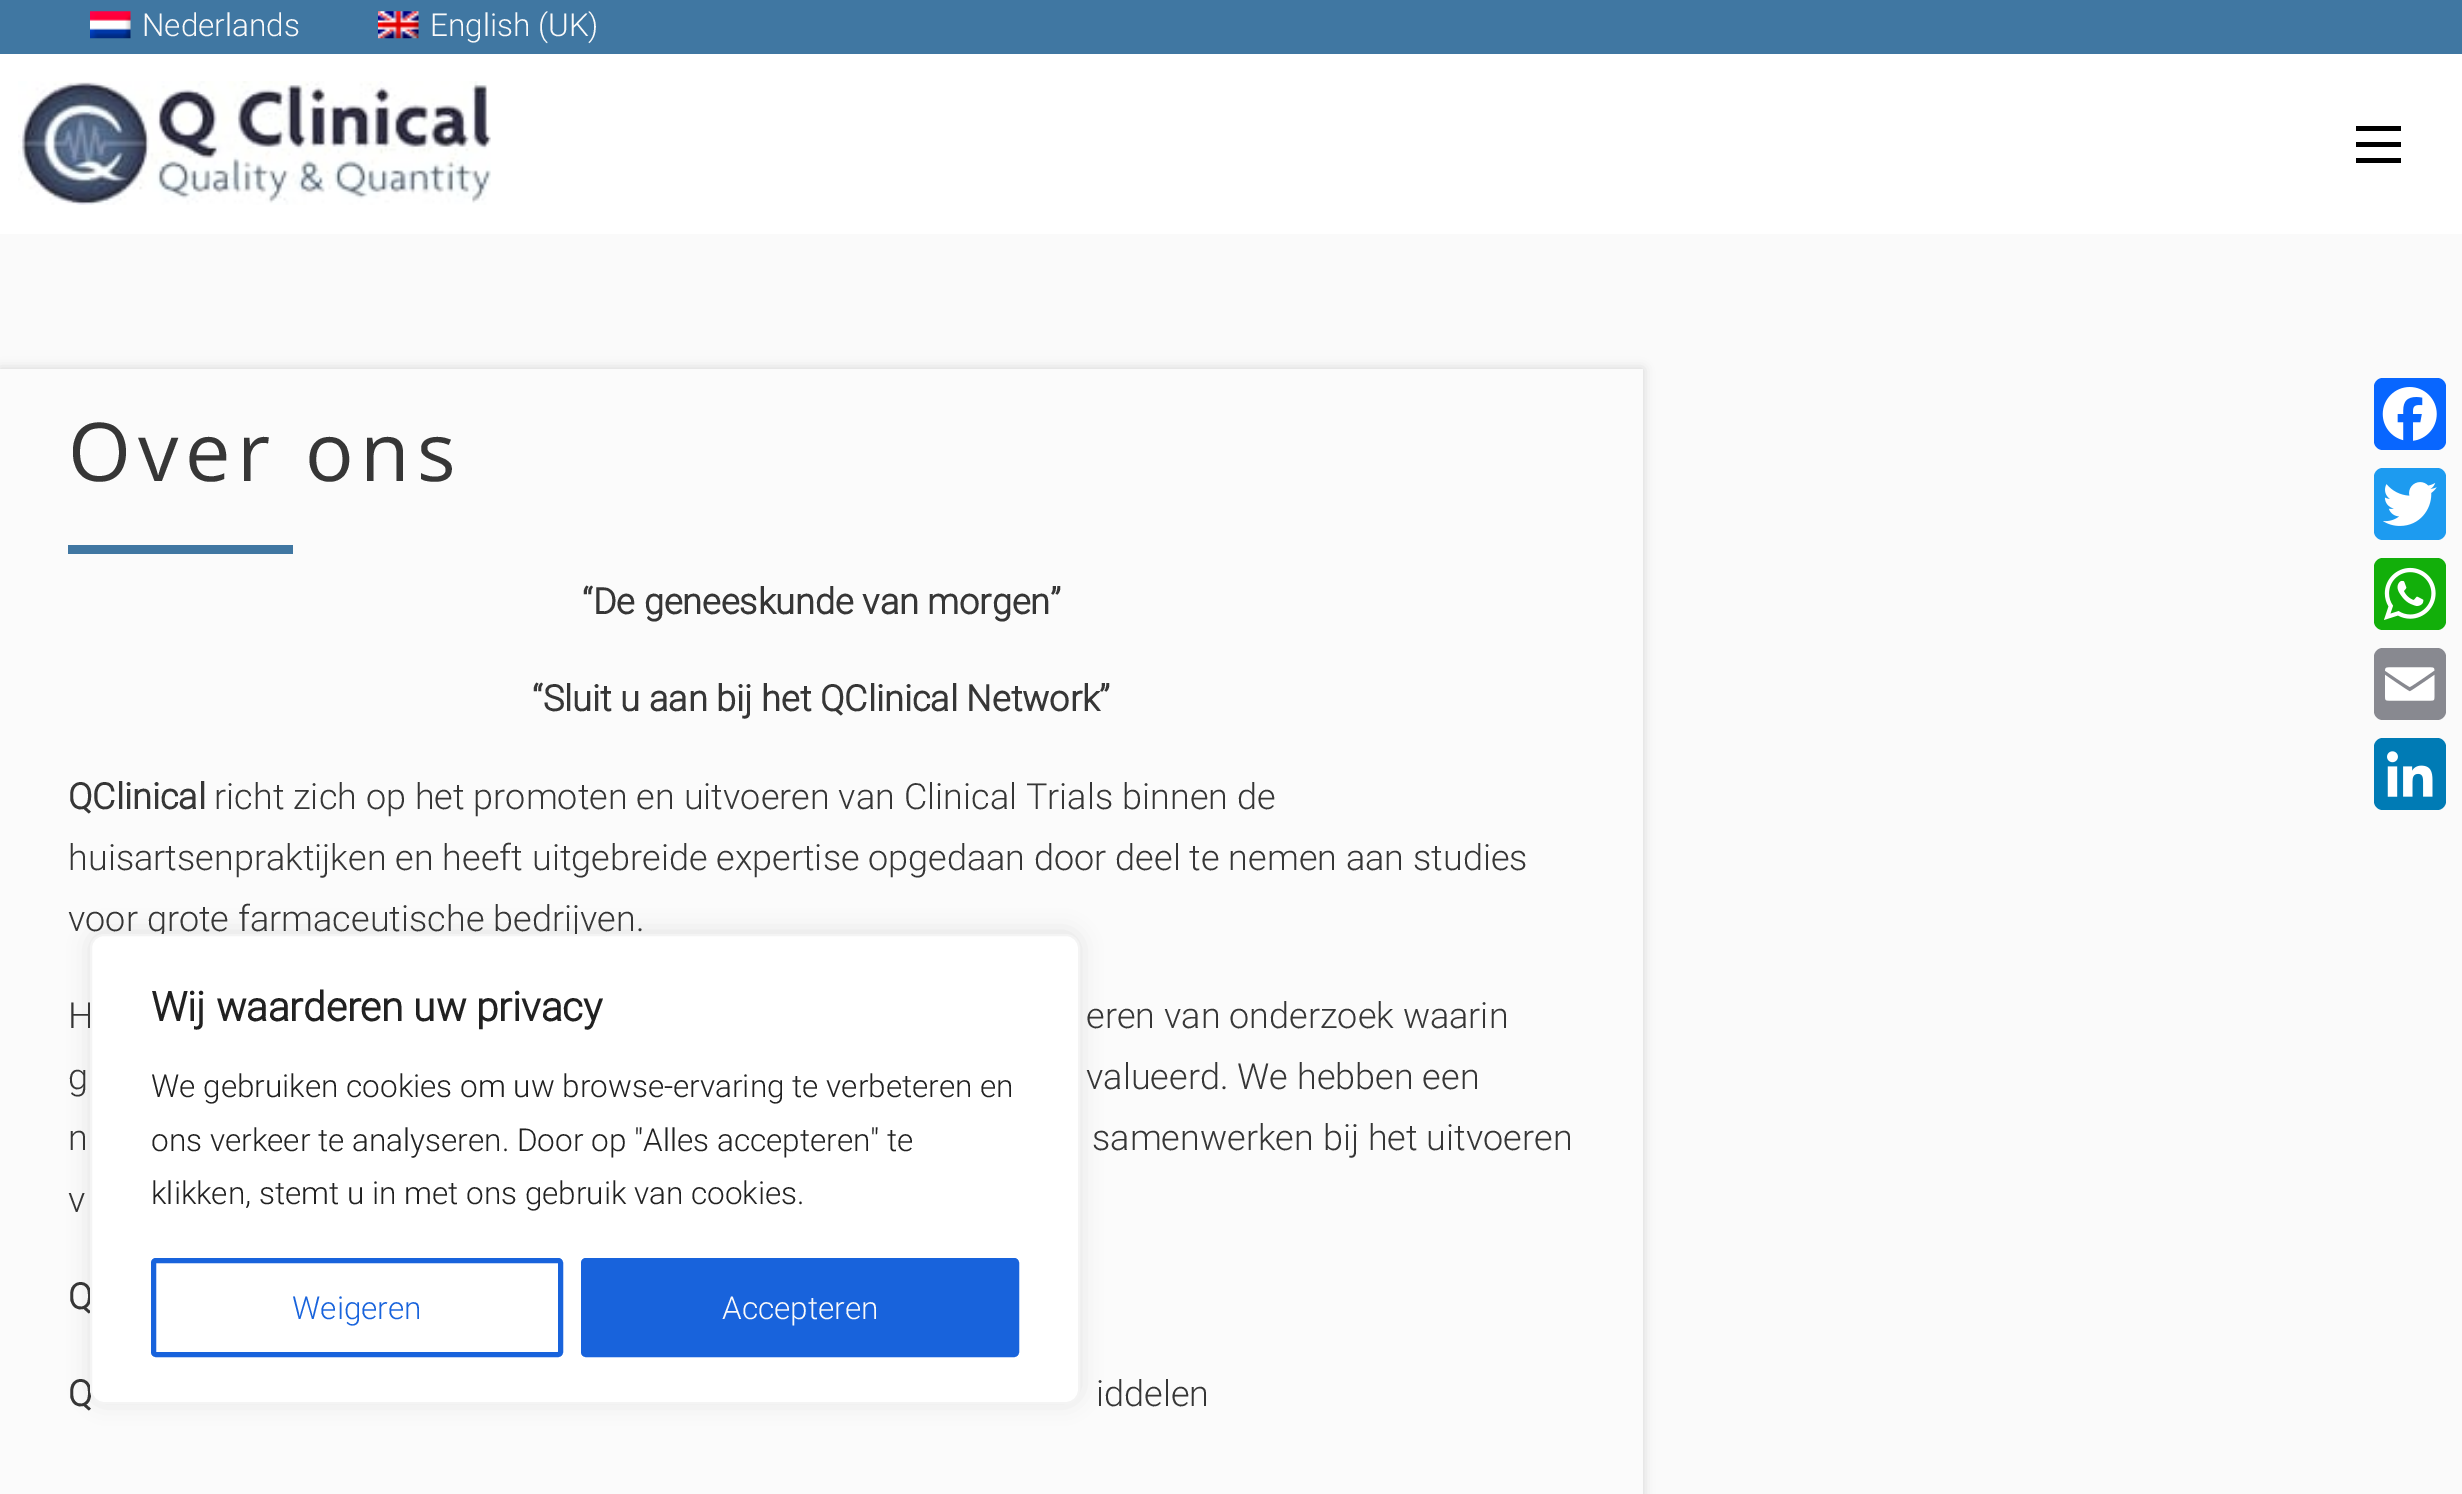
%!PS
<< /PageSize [2462 1494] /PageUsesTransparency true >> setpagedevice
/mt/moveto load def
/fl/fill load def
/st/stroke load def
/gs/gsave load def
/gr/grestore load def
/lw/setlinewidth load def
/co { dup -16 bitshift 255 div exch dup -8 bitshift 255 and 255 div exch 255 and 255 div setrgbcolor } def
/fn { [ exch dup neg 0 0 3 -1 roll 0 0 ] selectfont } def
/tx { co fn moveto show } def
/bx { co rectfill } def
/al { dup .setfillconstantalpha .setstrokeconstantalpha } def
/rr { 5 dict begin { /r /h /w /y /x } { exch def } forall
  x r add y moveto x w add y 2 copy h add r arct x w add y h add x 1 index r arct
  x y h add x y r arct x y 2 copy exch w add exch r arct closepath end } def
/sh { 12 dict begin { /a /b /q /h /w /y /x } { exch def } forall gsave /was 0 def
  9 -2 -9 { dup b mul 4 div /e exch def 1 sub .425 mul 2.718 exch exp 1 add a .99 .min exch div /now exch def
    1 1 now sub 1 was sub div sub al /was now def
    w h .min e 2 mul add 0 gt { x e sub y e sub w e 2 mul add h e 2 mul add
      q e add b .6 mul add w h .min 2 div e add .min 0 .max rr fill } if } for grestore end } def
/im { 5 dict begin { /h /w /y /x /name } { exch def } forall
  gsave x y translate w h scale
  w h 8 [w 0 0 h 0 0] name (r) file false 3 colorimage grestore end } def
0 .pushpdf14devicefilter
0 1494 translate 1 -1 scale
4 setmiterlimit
0 0 2462 1494 16#FAFAFA bx
0 0 2462 54 16#4077A2 bx
(media/1.raw) 90 11 41 28 im
(media/2.raw) 378 11 41 28 im
0 54 2462 180 16#FFFFFF bx
(media/3.raw) 18 81 473 124 im
2356 158 45 5 16#000000 bx
2356 142 45 5 16#000000 bx
2356 126 45 5 16#000000 bx
16#0A0A0A co
0 369 1643 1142 0 5.5 .15 sh
0 369 1643 1125 16#FBFBFB bx
68 545 225 9 16#4077A2 bx
16#0866FF co
2374 378 72 72 9 rr fl
(media/4.raw) 2382 387 55 54 im
16#1D9BF0 co
2374 468 72 72 9 rr fl
(media/5.raw) 2383 482 54 44 im
16#12AF0A co
2374 558 72 72 9 rr fl
(media/6.raw) 2384 567 52 53 im
16#888990 co
2374 648 72 72 9 rr fl
(media/7.raw) 2385 667 50 34 im
16#007BB5 co
2374 738 72 72 9 rr fl
(media/8.raw) 2387 751 46 46 im
16#ACABAB co
90 932 990 470 14 11 .3 sh
(Nederlands) 142 36 /Roboto-Light 31.5 16#FAFAFA tx
(English \(UK\)) 430 36 /Roboto-Light 31.5 16#FAFAFA tx
/OpenSans-Regular 81 fn
16#363636 co
68 481 mt 6.75 0 (Over ons) ashow
(“De geneeskunde van morgen”) 582 614 /Roboto-Bold 36 16#363636 tx
(“Sluit u aan bij het QClinical Network”) 532 711 /Roboto-Bold 36 16#363636 tx
(QClinical) 68 809 /Roboto-Bold 36 16#363636 tx
(richt zich op het promoten en uitvoeren van Clinical Trials binnen de) 214 809 /Roboto-Light 36 16#363636 tx
(huisartsenpraktijken en heeft uitgebreide expertise opgedaan door deel te nemen aan studies) 68 870 /Roboto-Light 36 16#363636 tx
(voor grote farmaceutische bedrijven.) 68 931 /Roboto-Light 36 16#363636 tx
(H) 68 1028 /Roboto-Light 36 16#363636 tx
(eren van onderzoek waarin) 1086 1028 /Roboto-Light 36 16#363636 tx
(g) 68 1089 /Roboto-Light 36 16#363636 tx
(valueerd. We hebben een) 1086 1089 /Roboto-Light 36 16#363636 tx
(n) 68 1150 /Roboto-Light 36 16#363636 tx
(samenwerken bij het uitvoeren) 1092 1150 /Roboto-Light 36 16#363636 tx
(v) 68 1212 /Roboto-Light 36 16#363636 tx
(Q) 68 1309 /Roboto-Bold 36 16#363636 tx
(Q) 68 1406 /Roboto-Bold 36 16#363636 tx
(iddelen) 1096 1406 /Roboto-Light 36 16#363636 tx
16#FFFFFF co
91 935 988 468 13 rr gs fl gr
16#F4F4F4 co
2 lw
st
(Wij waarderen uw privacy) 151 1021 /Roboto-Bold 40.5 16#212121 tx
(We gebruiken cookies om uw browse-ervaring te verbeteren en) 151 1097 /Roboto-Light 31.5 16#212121 tx
(ons verkeer te analyseren. Door op "Alles accepteren" te) 151 1151 /Roboto-Light 31.5 16#212121 tx
(klikken, stemt u in met ons gebruik van cookies.) 151 1204 /Roboto-Light 31.5 16#212121 tx
16#1863DC co
5 lw
153.5 1260.5 407 94 2.5 rr st
(Weigeren) 292 1319 /Roboto-Light 31.5 16#1863DC tx
583.5 1260.5 433 94 2.5 rr gs fl gr
st
(Accepteren) 722 1319 /Roboto-Light 31.5 16#FAFAFA tx
.poppdf14devicefilter showpage
